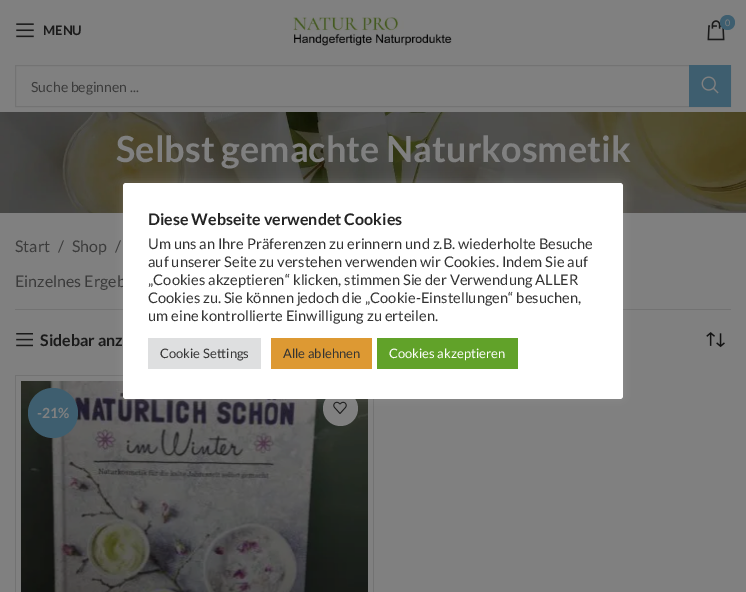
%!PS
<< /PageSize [746 592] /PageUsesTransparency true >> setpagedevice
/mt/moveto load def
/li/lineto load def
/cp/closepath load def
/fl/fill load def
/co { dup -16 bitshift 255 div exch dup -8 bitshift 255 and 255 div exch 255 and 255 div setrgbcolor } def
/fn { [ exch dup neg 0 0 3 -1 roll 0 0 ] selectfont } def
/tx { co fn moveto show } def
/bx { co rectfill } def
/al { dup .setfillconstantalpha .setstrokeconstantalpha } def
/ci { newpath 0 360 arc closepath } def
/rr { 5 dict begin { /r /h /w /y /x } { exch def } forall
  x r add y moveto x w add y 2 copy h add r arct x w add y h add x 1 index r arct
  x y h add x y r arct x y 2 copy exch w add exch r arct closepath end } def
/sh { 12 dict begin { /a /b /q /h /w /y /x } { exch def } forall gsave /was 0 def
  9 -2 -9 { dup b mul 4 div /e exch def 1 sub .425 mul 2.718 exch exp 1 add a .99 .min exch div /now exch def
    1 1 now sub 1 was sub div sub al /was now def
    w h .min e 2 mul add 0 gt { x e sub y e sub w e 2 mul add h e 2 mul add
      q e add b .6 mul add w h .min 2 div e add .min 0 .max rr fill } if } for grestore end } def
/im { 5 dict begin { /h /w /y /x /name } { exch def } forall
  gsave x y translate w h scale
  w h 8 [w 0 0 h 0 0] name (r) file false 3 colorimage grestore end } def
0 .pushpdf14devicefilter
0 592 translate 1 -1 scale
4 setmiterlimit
0 0 746 592 16#808080 bx
(media/1.raw) 293 17 159 29 im
(media/2.raw) 707 20 18 21 im
16#3E5E6F co
727.5 22.5 7.5 ci fl
(media/3.raw) 16 23 18 15 im
16#737373 co
15.5 65.5 715 41 rectstroke
689 65 42 42 16#3E5E6F bx
(media/4.raw) 701 76 18 18 im
(media/5.raw) 0 112 746 101 im
15 309 716 1 16#727272 bx
(media/6.raw) 16 333 17 14 im
(media/7.raw) 706 332 19 16 im
15 375 1 217 16#727272 bx
16 375 mt 374 375 li 373 376 li 16 376 li cp fl
0.11 al
16#000000 co
374 375 mt 374 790 li 373 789 li 373 376 li cp fl
1 al
(media/8.raw) 21 381 347 211 im
16#3E5E6F co
53 413 25 ci fl
16#808080 co
340.5 408.5 17.5 ci fl
(media/9.raw) 333 401 14 13 im
16#ACABAB co
123 182 500 216 3 5 .3 sh
(0) 725 26 /Lato-Regular 9 16#808080 tx
(MENU) 43 35 /Lato-Bold 13 16#1A1A1A tx
(Suche beginnen ...) 31 92 /Lato-Regular 14 16#3B3B3B tx
(Selbst gemachte Naturkosmetik) 116 162 /Lato-Bold 36 16#808080 tx
(Start) 15 252 /Lato-Regular 16 16#3B3B3B tx
(/) 58 252 /Lato-Regular 16 16#3B3B3B tx
(Shop) 72 252 /Lato-Regular 16 16#3B3B3B tx
(/) 115 252 /Lato-Regular 16 16#3B3B3B tx
(Einzelnes Ergeb) 15 287 /Lato-Regular 16 16#3B3B3B tx
(Sidebar anz) 40 346 /Lato-Bold 16 16#1A1A1A tx
(-21%) 37 418 /Lato-Bold 14 16#808080 tx
16#FFFFFF co
123 183 500 216 3 rr fl
(Diese Webseite verwendet Cookies) 148 225 /Lato-Bold 16 16#242424 tx
(Um uns an Ihre Präferenzen zu erinnern und z.B. wiederholte Besuche) 148 249 /Lato-Regular 14.7 16#333333 tx
(auf unserer Seite zu verstehen verwenden wir Cookies. Indem Sie auf) 148 267 /Lato-Regular 14.7 16#333333 tx
(„Cookies akzeptieren“ klicken, stimmen Sie der Verwendung ALLER) 148 285 /Lato-Regular 14.7 16#333333 tx
(Cookies zu. Sie können jedoch die „Cookie-Einstellungen“ besuchen,) 148 303 /Lato-Regular 14.7 16#333333 tx
(um eine kontrollierte Einwilligung zu erteilen.) 148 321 /Lato-Regular 14.7 16#333333 tx
148 338 113 31 16#DEDFE0 bx
(Cookie Settings) 160 358 /Lato-Regular 13 16#333333 tx
271 338 101 31 16#DD9933 bx
(Alle ablehnen) 283 358 /Lato-Regular 13 16#333333 tx
377 338 141 31 16#61A229 bx
(Cookies akzeptieren) 389 358 /Lato-Regular 13 16#FFFFFF tx
.poppdf14devicefilter showpage
